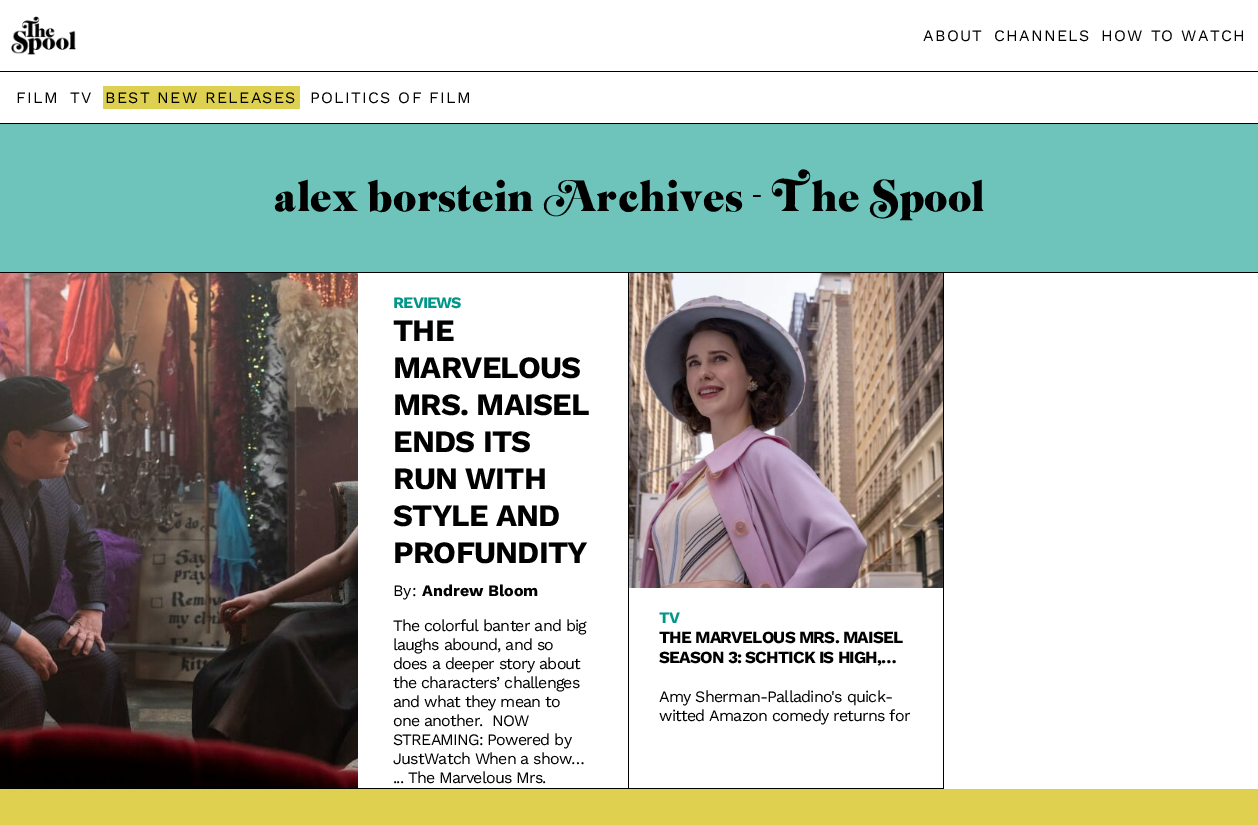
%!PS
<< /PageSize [1258 825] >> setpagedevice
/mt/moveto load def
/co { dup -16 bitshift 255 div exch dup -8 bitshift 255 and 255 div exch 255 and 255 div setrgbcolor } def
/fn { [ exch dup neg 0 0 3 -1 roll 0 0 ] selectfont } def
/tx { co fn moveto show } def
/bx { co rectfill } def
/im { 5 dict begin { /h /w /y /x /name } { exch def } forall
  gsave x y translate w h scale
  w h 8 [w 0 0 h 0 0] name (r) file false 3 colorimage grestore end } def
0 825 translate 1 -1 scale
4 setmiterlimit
0 0 1258 825 16#FFFFFF bx
0 71 1258 1 16#000000 bx
(media/1.raw) 11 16 65 39 im
0 123 1258 1 16#000000 bx
103 86 197 23 16#DED050 bx
0 124 1258 148 16#6EC3BB bx
0 272 1258 1 16#000000 bx
628 273 1 516 16#000000 bx
0 788 629 1 16#000000 bx
(media/2.raw) 0 273 358 515 im
943 273 1 516 16#000000 bx
629 788 315 1 16#000000 bx
(media/3.raw) 629 273 314 315 im
0 789 1258 36 16#DFD04F bx
/WorkSans-Regular 16 fn
16#000000 co
923 41 mt 1.25 0 (ABOUT) ashow
994 41 mt 1.25 0 (CHANNELS) ashow
1101 41 mt 1.25 0 (HOW TO WATCH) ashow
16 103 mt 1.25 0 (FILM) ashow
70 103 mt 1.25 0 (TV) ashow
105 103 mt 1.25 0 (BEST NEW RELEASES) ashow
310 103 mt 1.25 0 (POLITICS OF FILM) ashow
/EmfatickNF-Regular 58 fn
274 211 mt -7 0 32 (alex borstein Archives - The Spool) widthshow
/WorkSans-Bold 16 fn
16#009688 co
393 308 mt -.8 0 (REVIEWS) ashow
/WorkSans-Bold 31 fn
16#000000 co
393 341 mt -.8 0 (THE) ashow
393 378 mt -.8 0 (MARVELOUS) ashow
393 415 mt -.8 0 (MRS. MAISEL) ashow
393 452 mt -.8 0 (ENDS ITS) ashow
393 489 mt -.8 0 (RUN WITH) ashow
393 526 mt -.8 0 (STYLE AND) ashow
393 563 mt -.8 0 (PROFUNDITY) ashow
(By:) 393 596 /WorkSans-Regular 16 16#000000 tx
(Andrew Bloom) 422 596 /WorkSans-Bold 16 16#000000 tx
/WorkSans-Regular 16 fn
393 631 mt -.8 0 (The colorful banter and big) ashow
393 650 mt -.8 0 (laughs abound, and so) ashow
393 669 mt -.8 0 (does a deeper story about) ashow
393 688 mt -.8 0 (the characters’ challenges) ashow
393 707 mt -.8 0 (and what they mean to) ashow
393 726 mt -.8 0 (one another.  NOW) ashow
393 745 mt -.8 0 (STREAMING: Powered by) ashow
393 764 mt -.8 0 (JustWatch When a show…) ashow
393 783 mt -.8 0 (... The Marvelous Mrs.) ashow
/WorkSans-Bold 16 fn
16#009688 co
659 623 mt -.8 0 (TV) ashow
/WorkSans-Bold 17 fn
16#000000 co
659 643 mt -.8 0 (THE MARVELOUS MRS. MAISEL) ashow
659 663 mt -.8 0 (SEASON 3: SCHTICK IS HIGH,…) ashow
/WorkSans-Regular 16 fn
659 702 mt -.8 0 (Amy Sherman-Palladino's quick-) ashow
659 721 mt -.8 0 (witted Amazon comedy returns for) ashow
showpage
